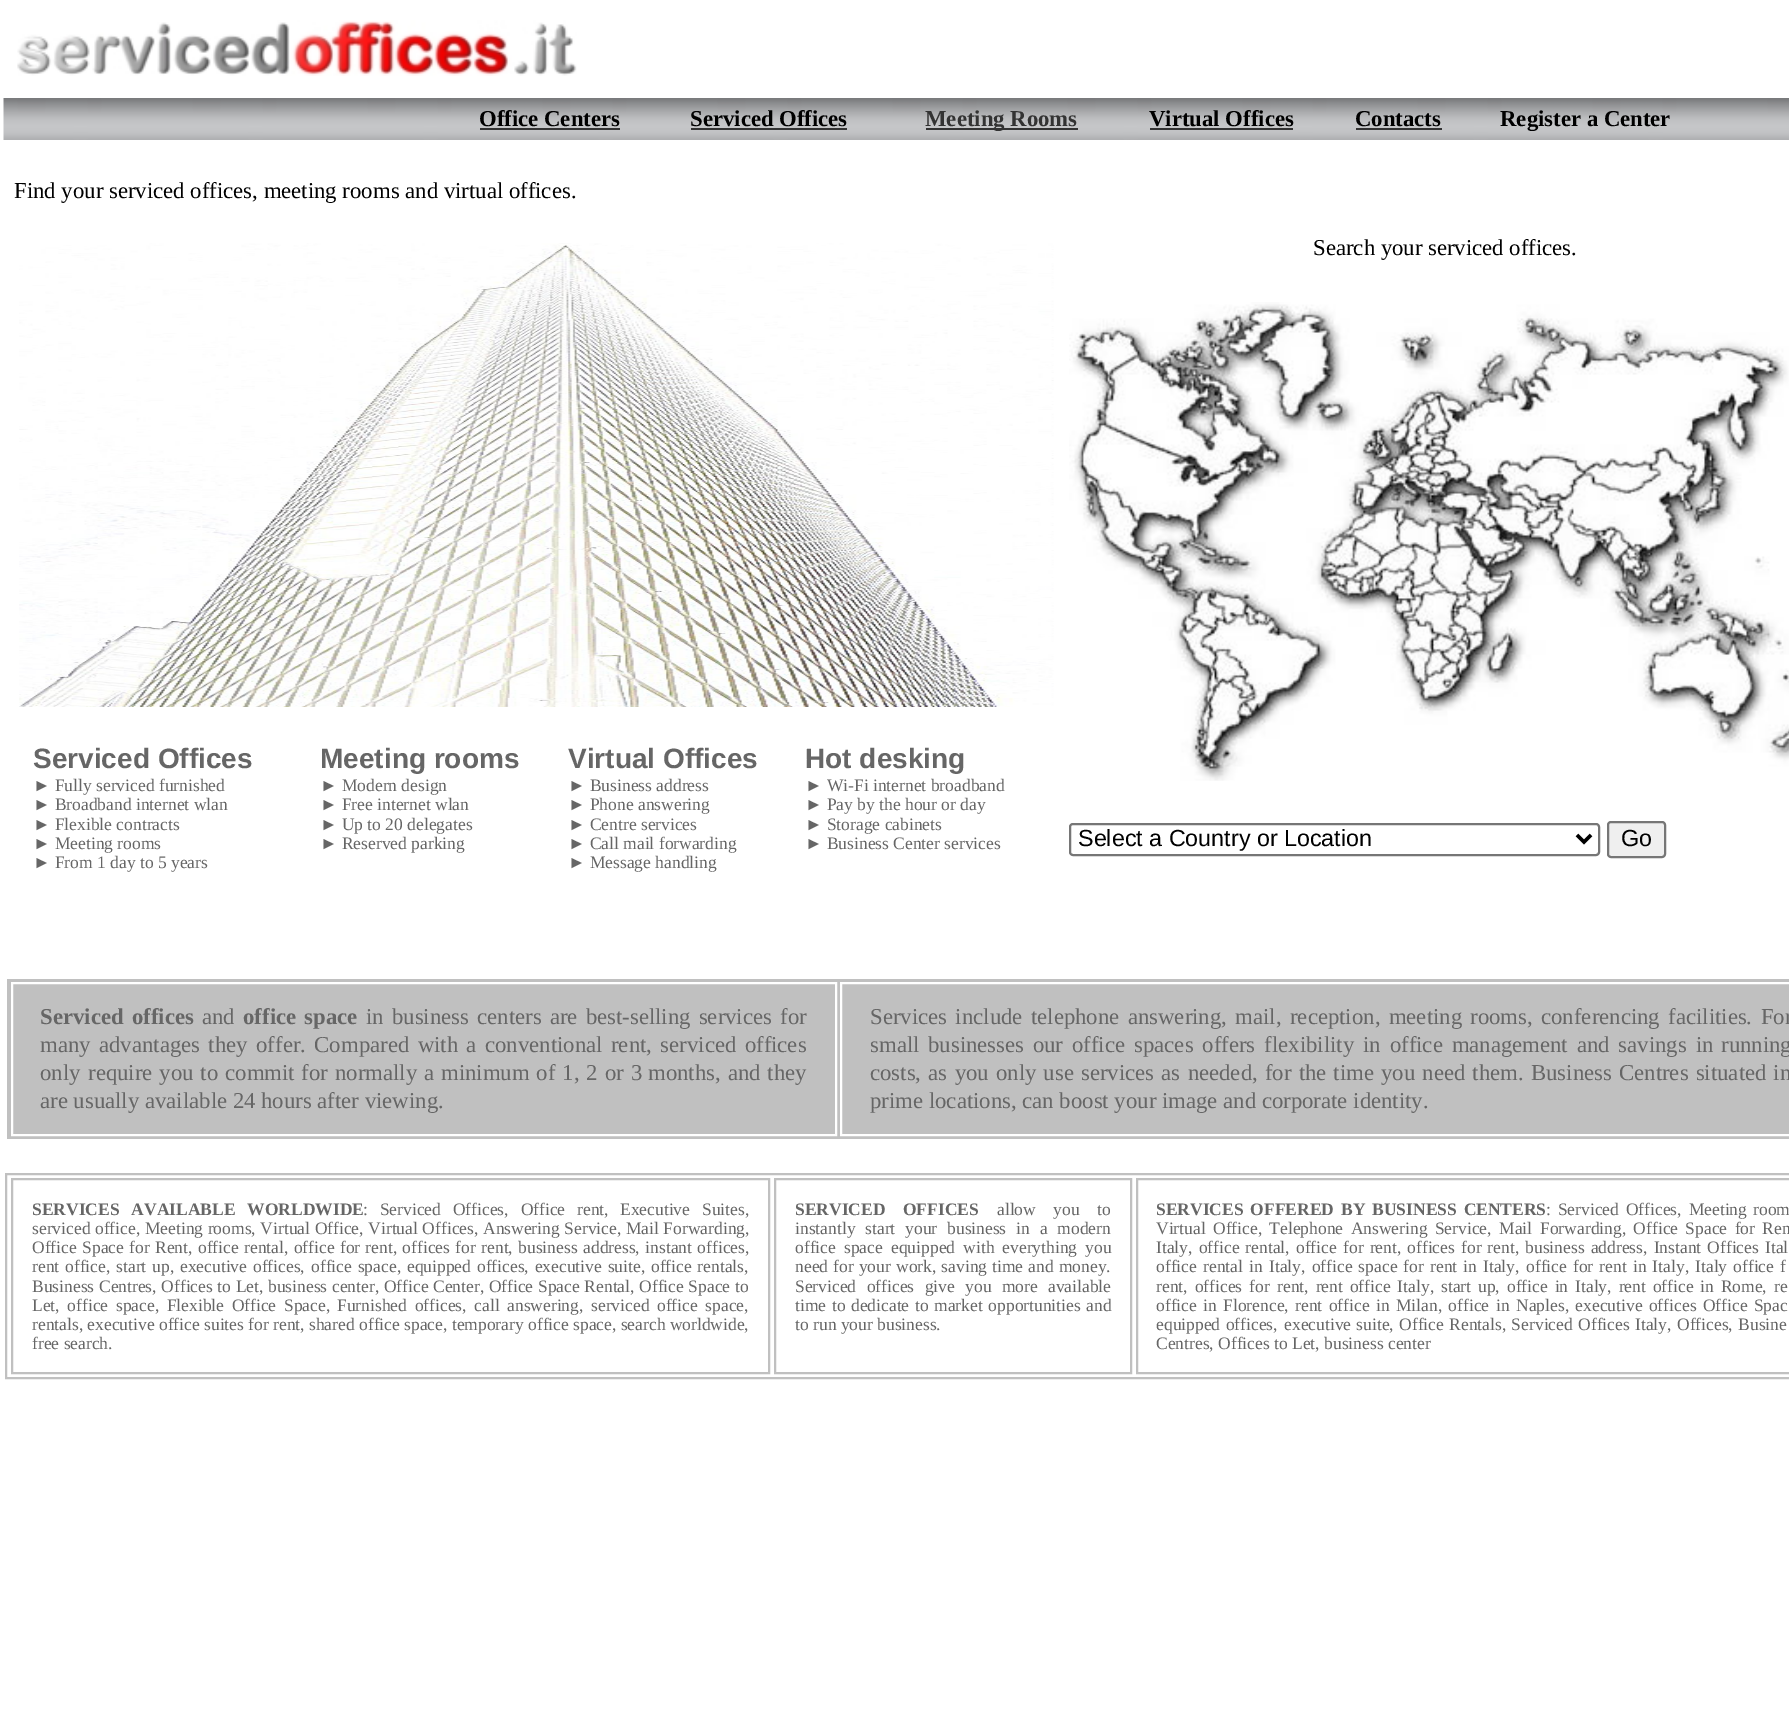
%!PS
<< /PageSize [1789 1719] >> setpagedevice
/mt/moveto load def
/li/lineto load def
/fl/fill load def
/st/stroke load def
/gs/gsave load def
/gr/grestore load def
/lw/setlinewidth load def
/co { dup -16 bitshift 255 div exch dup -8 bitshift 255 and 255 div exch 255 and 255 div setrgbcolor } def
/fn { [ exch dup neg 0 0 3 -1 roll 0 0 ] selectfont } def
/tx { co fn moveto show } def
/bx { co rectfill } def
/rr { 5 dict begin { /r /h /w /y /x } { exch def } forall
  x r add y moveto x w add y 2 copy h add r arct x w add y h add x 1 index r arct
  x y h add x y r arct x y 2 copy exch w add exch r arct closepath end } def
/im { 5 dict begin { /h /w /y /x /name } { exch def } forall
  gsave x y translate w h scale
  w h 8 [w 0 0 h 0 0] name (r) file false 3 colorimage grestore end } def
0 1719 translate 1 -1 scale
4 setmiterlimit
0 0 1789 1719 16#FFFFFF bx
(media/1.raw) 17 20 560 56 im
(media/2.raw) 3 98 1786 42 im
480 128 140 2 16#333333 bx
691 128 156 2 16#333333 bx
926 128 152 2 16#333333 bx
1150 128 143 2 16#333333 bx
1356 128 86 2 16#333333 bx
(media/3.raw) 19 243 1035 464 im
(media/4.raw) 1069 302 720 479 im
16#767676 co
2 lw
1070 824 529 31 3 rr st
16#000000 co
3.5 lw
1577 835 mt 1584 842 li 1591 835 li st
16#EFEFEF co
1608 822 57 35 3 rr gs fl gr
16#767676 co
2 lw
st
7 979 1782 160 16#C0C0C0 bx
16#FFFFFF co
12 983 824 152 rectstroke
841 983 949 152 rectstroke
16#C0C0C0 co
6 1174 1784 204 rectstroke
12 1179 757 194 rectstroke
775 1179 356 194 rectstroke
1137 1179 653 194 rectstroke
(Office Centers) 479 126 /LiberationSerif-Bold 22.75 16#000000 tx
(Serviced Offices) 690 126 /LiberationSerif-Bold 22.75 16#000000 tx
(Meeting Rooms) 925 126 /LiberationSerif-Bold 22.75 16#333333 tx
(Virtual Offices) 1149 126 /LiberationSerif-Bold 22.75 16#000000 tx
(Contacts) 1355 126 /LiberationSerif-Bold 22.75 16#000000 tx
(Register a Center) 1500 126 /LiberationSerif-Bold 22.75 16#000000 tx
(Find your serviced offices, meeting rooms and virtual offices.) 14 198 /LiberationSerif-Regular 22.75 16#000000 tx
(Serviced Offices) 33 768 /LiberationSans-Bold 28 16#666666 tx
(► Fully serviced furnished) 33 791 /LiberationSerif-Regular 17.5 16#666666 tx
(► Broadband internet wlan) 33 810 /LiberationSerif-Regular 17.5 16#666666 tx
(► Flexible contracts) 33 830 /LiberationSerif-Regular 17.5 16#666666 tx
(► Meeting rooms) 33 849 /LiberationSerif-Regular 17.5 16#666666 tx
(► From 1 day to 5 years) 33 868 /LiberationSerif-Regular 17.5 16#666666 tx
(Meeting rooms) 320 768 /LiberationSans-Bold 28 16#666666 tx
(► Modern design) 320 791 /LiberationSerif-Regular 17.5 16#666666 tx
(► Free internet wlan) 320 810 /LiberationSerif-Regular 17.5 16#666666 tx
(► Up to 20 delegates) 320 830 /LiberationSerif-Regular 17.5 16#666666 tx
(► Reserved parking) 320 849 /LiberationSerif-Regular 17.5 16#666666 tx
(Virtual Offices) 568 768 /LiberationSans-Bold 28 16#666666 tx
(► Business address) 568 791 /LiberationSerif-Regular 17.5 16#666666 tx
(► Phone answering) 568 810 /LiberationSerif-Regular 17.5 16#666666 tx
(► Centre services) 568 830 /LiberationSerif-Regular 17.5 16#666666 tx
(► Call mail forwarding) 568 849 /LiberationSerif-Regular 17.5 16#666666 tx
(► Message handling) 568 868 /LiberationSerif-Regular 17.5 16#666666 tx
(Hot desking) 805 768 /LiberationSans-Bold 28 16#666666 tx
(► Wi-Fi internet broadband) 805 791 /LiberationSerif-Regular 17.5 16#666666 tx
(► Pay by the hour or day) 805 810 /LiberationSerif-Regular 17.5 16#666666 tx
(► Storage cabinets) 805 830 /LiberationSerif-Regular 17.5 16#666666 tx
(► Business Center services) 805 849 /LiberationSerif-Regular 17.5 16#666666 tx
(Search your serviced offices.) 1313 255 /LiberationSerif-Regular 22.75 16#000000 tx
(Select a Country or Location) 1078 846 /LiberationSans-Regular 23.3 16#000000 tx
(Go) 1621 846 /LiberationSans-Regular 23.3 16#000000 tx
/LiberationSerif-Bold 22.75 fn
16#666666 co
40 1024 mt 2.6 0 32 (Serviced offices) widthshow
(and) 202 1024 /LiberationSerif-Regular 22.75 16#666666 tx
/LiberationSerif-Bold 22.75 fn
243 1024 mt 2.5 0 32 (office space) widthshow
/LiberationSerif-Regular 22.75 fn
366 1024 mt 2.5 0 32 (in business) widthshow
477 1024 mt 2.5 0 32 (centers are best-selling services for) widthshow
40 1052 mt 2.75 0 32 (many advantages they) widthshow
256 1052 mt 2.75 0 32 (offer. Compared with a conventional rent, serviced offices) widthshow
(only) 40 1080 /LiberationSerif-Regular 22.75 16#666666 tx
88 1080 mt 1.25 0 32 (require you to commit for normally a minimum of 1, 2 or 3) widthshow
648 1080 mt 1.25 0 32 (months, and they) widthshow
(are usually available 24 hours after viewing.) 40 1108 /LiberationSerif-Regular 22.75 16#666666 tx
870 1024 mt 2.75 0 32 (Services include telephone answering, mail, reception, meeting) widthshow
1470 1024 mt 2.75 0 32 (rooms, conferencing facilities. For) widthshow
870 1052 mt 3 0 32 (small businesses our office) widthshow
1134 1052 mt 3.25 0 32 (spaces offers flexibility in office management and savings in) widthshow
(running) 1721 1052 /LiberationSerif-Regular 22.75 16#666666 tx
870 1080 mt 1.5 0 32 (costs, as you only use services as needed, for the time) widthshow
1381 1080 mt 1.5 0 32 (you need them. Business Centres situated in) widthshow
(prime locations, can boost your image and corporate identity.) 870 1108 /LiberationSerif-Regular 22.75 16#666666 tx
/LiberationSerif-Bold 17.5 fn
32 1215 mt 7.5 0 32 (SERVICES AVAILABLE WORLDWIDE) widthshow
/LiberationSerif-Regular 17.5 fn
363 1215 mt 7.5 0 32 (: Serviced Offices, Office rent,) widthshow
620 1215 mt 7.5 0 32 (Executive Suites,) widthshow
32 1234 mt .25 0 32 (serviced office, Meeting rooms, Virtual Office, Virtual Offices, Answering Service, Mail Forwarding,) widthshow
32 1253 mt 1 0 32 (Office Space for) widthshow
155 1253 mt 1 0 32 (Rent, office rental, office for rent, offices for rent, business) widthshow
583 1253 mt 1 0 32 (address, instant offices,) widthshow
32 1272 mt 1.5 0 32 (rent office, start up, executive offices,) widthshow
311 1272 mt 1.5 0 32 (office space, equipped offices, executive suite, office rentals,) widthshow
32 1292 mt .25 0 32 (Business Centres, Offices to Let, business center, Office Center, Office) widthshow
538 1292 mt .25 0 32 (Space Rental, Office Space to) widthshow
32 1311 mt 3.25 0 32 (Let, office space, Flexible Office Space,) widthshow
337 1311 mt 3.25 0 32 (Furnished offices, call answering, serviced office space,) widthshow
(rentals, executive office suites for rent, shared office space, temporary office) 32 1330 /LiberationSerif-Regular 17.5 16#666666 tx
(space, search worldwide,) 573 1330 /LiberationSerif-Regular 17.5 16#666666 tx
(free search.) 32 1349 /LiberationSerif-Regular 17.5 16#666666 tx
/LiberationSerif-Bold 17.5 fn
795 1215 mt 13 0 32 (SERVICED OFFICES) widthshow
/LiberationSerif-Regular 17.5 fn
997 1215 mt 13 0 32 (allow you to) widthshow
795 1234 mt 5.5 0 32 (instantly start your) widthshow
947 1234 mt 5.5 0 32 (business in a modern) widthshow
795 1253 mt 3.75 0 32 (office space equipped with everything you) widthshow
795 1272 mt .75 0 32 (need for your work, saving time and money.) widthshow
795 1292 mt 6 0 32 (Serviced offices give) widthshow
965 1292 mt 6 0 32 (you more available) widthshow
795 1311 mt 1.25 0 32 (time to dedicate to market opportunities and) widthshow
(to run your business.) 795 1330 /LiberationSerif-Regular 17.5 16#666666 tx
/LiberationSerif-Bold 17.5 fn
1156 1215 mt 2.5 0 32 (SERVICES OFFERED BY BUSINESS CENTERS) widthshow
/LiberationSerif-Regular 17.5 fn
1546 1215 mt 2.5 0 32 (: Serviced Offices, Meeting) widthshow
(room) 1753 1215 /LiberationSerif-Regular 17.5 16#666666 tx
1156 1234 mt 3 0 32 (Virtual Office, Telephone Answering Service, Mail) widthshow
1540 1234 mt 3 0 32 (Forwarding, Office Space for Ren) widthshow
1156 1253 mt 1.75 0 32 (Italy, office rental, office) widthshow
1343 1253 mt 1.75 0 32 (for rent, offices for rent, business address, Instant Offices Ital) widthshow
1156 1272 mt 1.75 0 32 (office rental in) widthshow
1269 1272 mt 1.75 0 32 (Italy, office space for rent in Italy,) widthshow
1526 1272 mt 1.75 0 32 (office for rent in Italy, Italy office f) widthshow
1156 1292 mt 2.6 0 32 (rent, offices for) widthshow
1277 1292 mt 2.6 0 32 (rent, rent office Italy, start up, office in Italy, rent office) widthshow
1700 1292 mt 2.6 0 32 (in Rome, re) widthshow
1156 1311 mt 2 0 32 (office in Florence, rent office in Milan, office) widthshow
1496 1311 mt 2 0 32 (in Naples, executive offices Office Spac) widthshow
1156 1330 mt 1 0 32 (equipped offices,) widthshow
1284 1330 mt 1 0 32 (executive suite, Office Rentals, Serviced Offices Italy,) widthshow
1677 1330 mt 1 0 32 (Offices, Busine) widthshow
(Centres, Offices to Let, business center) 1156 1349 /LiberationSerif-Regular 17.5 16#666666 tx
showpage
